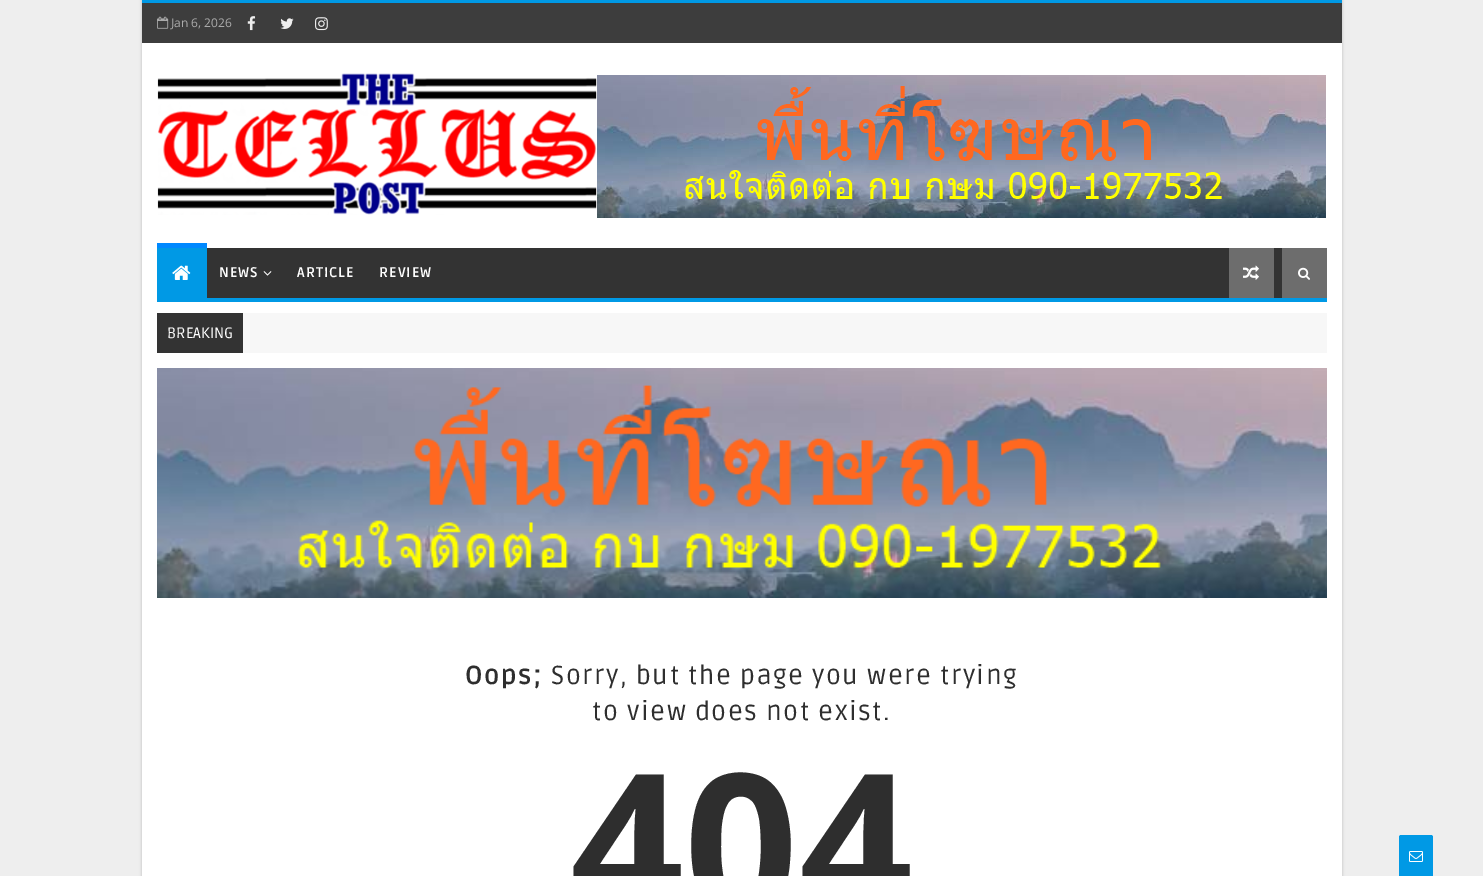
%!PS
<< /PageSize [1483 876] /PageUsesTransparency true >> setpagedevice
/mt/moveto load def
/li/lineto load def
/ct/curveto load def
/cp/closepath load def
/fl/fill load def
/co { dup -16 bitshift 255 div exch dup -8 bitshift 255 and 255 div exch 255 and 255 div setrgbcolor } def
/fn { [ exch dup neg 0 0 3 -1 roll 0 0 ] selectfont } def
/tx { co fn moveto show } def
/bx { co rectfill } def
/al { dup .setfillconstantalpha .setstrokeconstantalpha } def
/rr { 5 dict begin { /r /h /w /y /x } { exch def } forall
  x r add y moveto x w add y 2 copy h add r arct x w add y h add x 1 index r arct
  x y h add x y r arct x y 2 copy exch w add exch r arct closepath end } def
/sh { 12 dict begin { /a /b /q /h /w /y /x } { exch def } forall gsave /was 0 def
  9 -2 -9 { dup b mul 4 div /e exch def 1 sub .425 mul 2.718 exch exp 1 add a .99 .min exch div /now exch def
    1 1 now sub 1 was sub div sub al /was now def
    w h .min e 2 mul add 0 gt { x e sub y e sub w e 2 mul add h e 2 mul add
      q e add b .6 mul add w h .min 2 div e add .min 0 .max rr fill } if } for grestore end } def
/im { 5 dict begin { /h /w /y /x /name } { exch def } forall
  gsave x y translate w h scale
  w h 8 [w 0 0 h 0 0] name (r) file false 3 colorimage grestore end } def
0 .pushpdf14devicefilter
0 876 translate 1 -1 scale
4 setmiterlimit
0 0 1483 876 16#EEEEEE bx
16#000000 co
142 0 1200 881 0 1.5 .2 sh
142 43 1200 833 16#FFFFFF bx
142 3 1200 40 16#3D3D3D bx
142 0 1200 3 16#0099E5 bx
(media/1.raw) 157 16 12 13 im
(media/2.raw) 247 16 9 15 im
(media/3.raw) 280 18 14 11 im
(media/4.raw) 315 17 13 14 im
(media/5.raw) 157 73 440 142 im
(media/6.raw) 597 75 729 143 im
207 248 1075 50 16#333333 bx
157 298 1170 4 16#0099E5 bx
157 248 50 50 16#0099E5 bx
157 243 50 5 16#0088FF bx
(media/7.raw) 172 265 19 15 im
(media/8.raw) 263 271 9 5 im
1229 248 45 50 16#6D6D6D bx
(media/9.raw) 1243 265 16 15 im
1282 248 45 50 16#6D6D6D bx
(media/10.raw) 1298 267 12 13 im
243 313 1084 40 16#F7F7F7 bx
157 313 86 40 16#333333 bx
(media/11.raw) 157 368 1170 230 im
16#0099E5 co
1401 835 mt 1431 835 li 1432 835 1433 836 1433 837 ct 1433 876 li 1399 876 li 1399 837 li 1399 836 1400 835 1401 835 ct cp fl
(media/12.raw) 1409 851 14 11 im
(Jan 6, 2026) 171 27 /OpenSans-Regular 12 16#AAAAAA tx
/Ruda-Bold 14 fn
16#FFFFFF co
219 277 mt 1 0 (NEWS) ashow
297 277 mt 1 0 (ARTICLE) ashow
379 277 mt 1 0 (REVIEW) ashow
(BREAKING) 167 338 /Ruda-Regular 15 16#FFFFFF tx
/Ruda-Bold 26 fn
16#2E2E2E co
465 684 mt 1.5 0 (Oops;) ashow
/Ruda-Regular 26 fn
551 684 mt 1.5 0 (Sorry, but the page you were trying) ashow
592 720 mt 1.5 0 (to view does not exist.) ashow
(404) 570 917 /OpenSans-Bold 200 16#2E2E2E tx
.poppdf14devicefilter showpage
